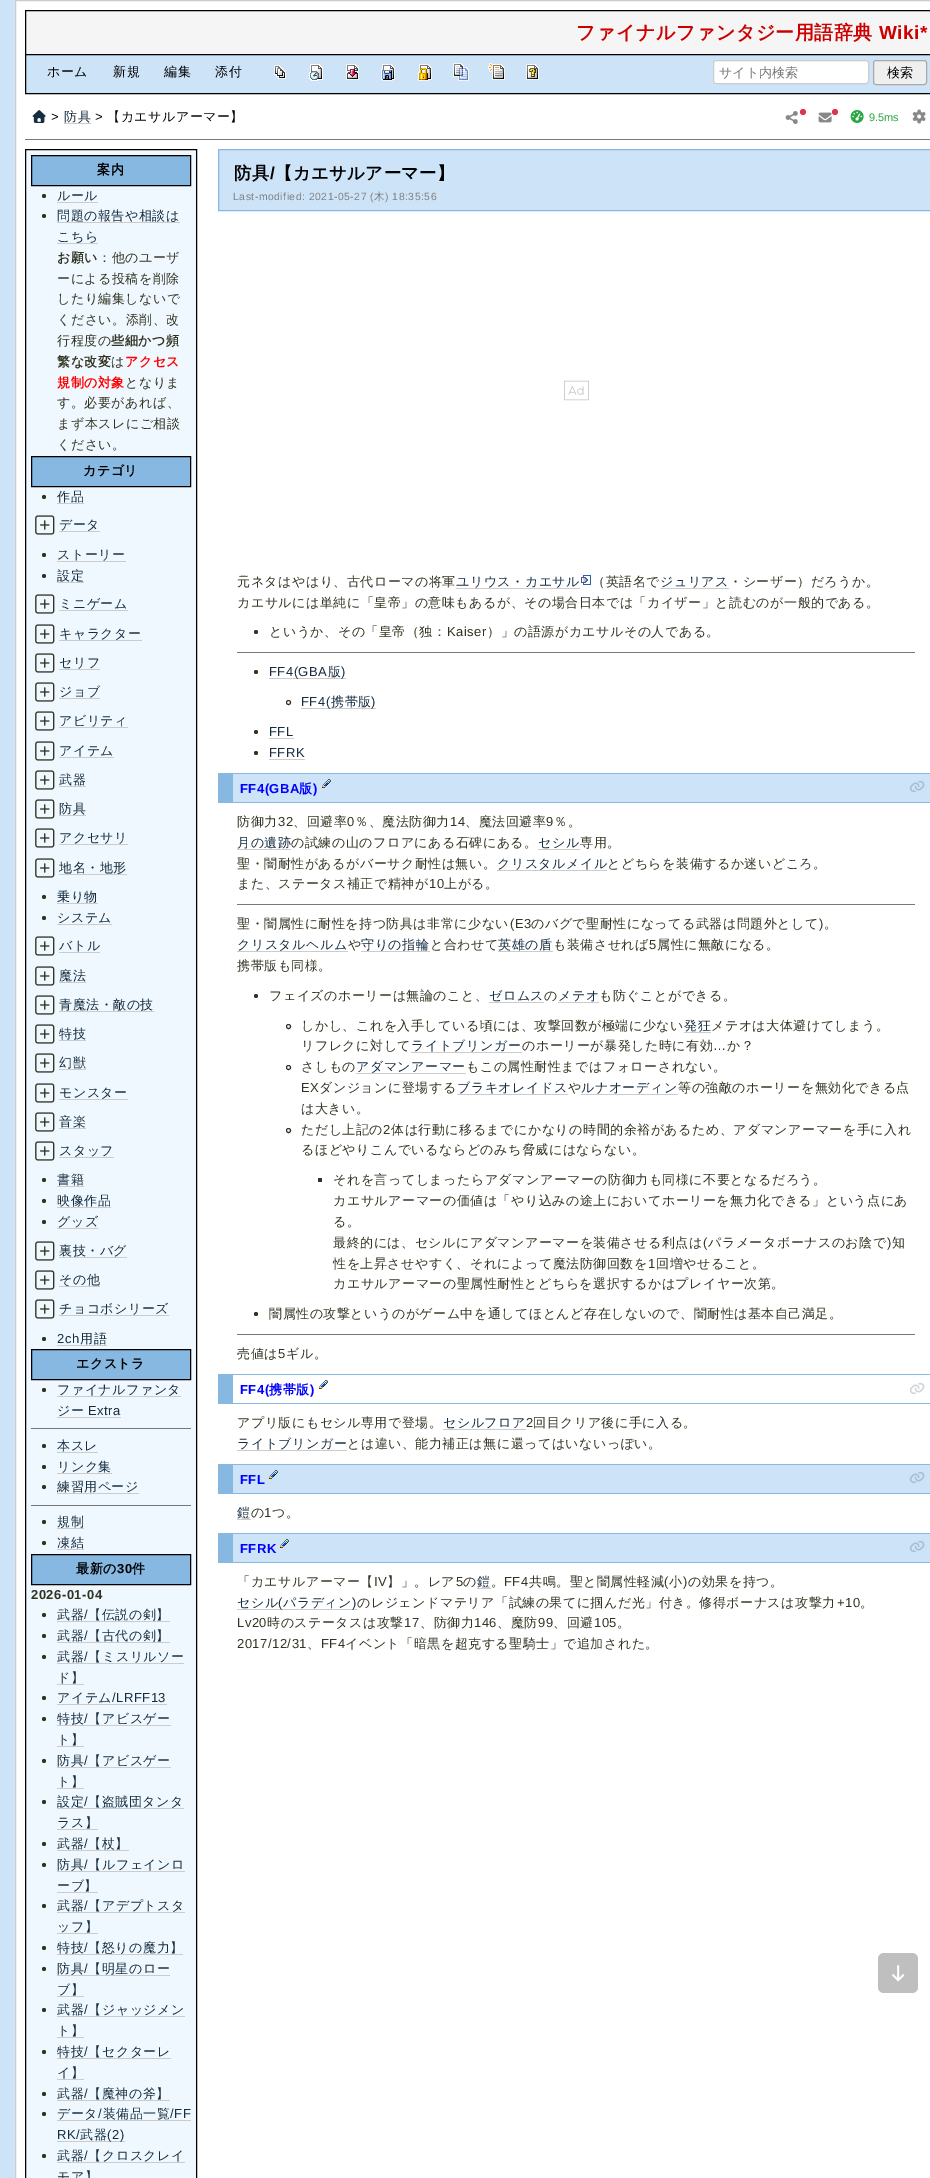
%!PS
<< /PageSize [930 2178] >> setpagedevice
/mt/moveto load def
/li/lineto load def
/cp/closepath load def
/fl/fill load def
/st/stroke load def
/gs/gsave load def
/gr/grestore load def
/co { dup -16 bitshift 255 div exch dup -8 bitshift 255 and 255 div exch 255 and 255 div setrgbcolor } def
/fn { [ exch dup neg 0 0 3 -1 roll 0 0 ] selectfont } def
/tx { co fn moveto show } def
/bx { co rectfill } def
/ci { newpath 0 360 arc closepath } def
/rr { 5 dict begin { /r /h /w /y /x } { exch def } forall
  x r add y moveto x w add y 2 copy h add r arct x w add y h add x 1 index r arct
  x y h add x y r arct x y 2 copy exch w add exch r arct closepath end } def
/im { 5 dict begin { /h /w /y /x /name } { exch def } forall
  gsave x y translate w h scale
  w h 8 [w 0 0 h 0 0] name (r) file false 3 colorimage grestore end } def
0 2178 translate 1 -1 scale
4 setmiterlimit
0 0 930 2178 16#CCE3F8 bx
16#FFFFFF co
15.5 .5 mt 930.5 .5 li 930.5 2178.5 li 15.5 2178.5 li cp gs fl gr
16#CCCCCC co
st
16#F5F5F5 co
25.5 10.5 mt 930.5 10.5 li 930.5 54.5 li 25.5 54.5 li cp gs fl gr
16#000000 co
st
16#CCE3F8 co
25.5 54.5 mt 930.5 54.5 li 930.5 93.5 li 25.5 93.5 li cp gs fl gr
16#000000 co
st
(media/1.raw) 274 65 12 14 im
(media/2.raw) 309 64 14 17 im
(media/3.raw) 346 64 13 16 im
(media/4.raw) 381 64 14 17 im
(media/5.raw) 418 64 14 17 im
(media/6.raw) 453 63 16 18 im
(media/7.raw) 488 63 17 17 im
(media/8.raw) 526 64 13 16 im
16#FFFFFF co
713.5 60.5 155 23 2.5 rr gs fl gr
16#CCCCCC co
st
16#EFEFEF co
873.5 60.5 53 24 2.5 rr gs fl gr
16#AAAAAA co
st
16#BFBFBF co
878 1953 40 40 6 rr fl
(media/9.raw) 892 1965 13 17 im
(media/10.raw) 32 110 14 13 im
64 123 27 1 16#CCCCCC bx
(media/11.raw) 785 111 13 13 im
16#DC3545 co
803 112 3 ci fl
(media/12.raw) 818 112 14 11 im
835 112 3 ci fl
(media/13.raw) 850 110 14 13 im
(media/14.raw) 912 109 14 15 im
25 139 905 1 16#777777 bx
16#F0F8FF co
25.5 149.5 mt 196.5 149.5 li 196.5 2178.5 li 25.5 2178.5 li cp gs fl gr
16#000000 co
st
16#86B8E2 co
31.5 155.5 mt 190.5 155.5 li 190.5 185.5 li 31.5 185.5 li cp gs fl gr
16#000000 co
st
16#333322 co
44 196 2 ci fl
57 202 41 1 16#CCCCCC bx
16#333322 co
44 216 2 ci fl
57 222 123 1 16#CCCCCC bx
57 243 41 1 16#CCCCCC bx
16#86B8E2 co
31.5 456.5 mt 190.5 456.5 li 190.5 486.5 li 31.5 486.5 li cp gs fl gr
16#000000 co
st
16#333322 co
44 497 2 ci fl
57 503 27 1 16#CCCCCC bx
(media/15.raw) 35 515 20 20 im
59 531 41 1 16#CCCCCC bx
16#333322 co
44 555 2 ci fl
57 561 69 1 16#CCCCCC bx
16#333322 co
44 576 2 ci fl
57 582 27 1 16#CCCCCC bx
(media/15.raw) 35 594 20 20 im
59 610 69 1 16#CCCCCC bx
(media/15.raw) 35 624 20 20 im
59 640 83 1 16#CCCCCC bx
(media/15.raw) 35 653 20 20 im
59 669 41 1 16#CCCCCC bx
(media/15.raw) 35 682 20 20 im
59 698 41 1 16#CCCCCC bx
(media/15.raw) 35 711 20 20 im
59 727 69 1 16#CCCCCC bx
(media/15.raw) 35 741 20 20 im
59 757 55 1 16#CCCCCC bx
(media/15.raw) 35 770 20 20 im
59 786 27 1 16#CCCCCC bx
(media/15.raw) 35 799 20 20 im
59 815 27 1 16#CCCCCC bx
(media/15.raw) 35 828 20 20 im
59 844 69 1 16#CCCCCC bx
(media/15.raw) 35 858 20 20 im
59 874 68 1 16#CCCCCC bx
16#333322 co
44 897 2 ci fl
57 903 41 1 16#CCCCCC bx
16#333322 co
44 918 2 ci fl
57 924 55 1 16#CCCCCC bx
(media/15.raw) 35 936 20 20 im
59 952 41 1 16#CCCCCC bx
(media/15.raw) 35 966 20 20 im
59 982 27 1 16#CCCCCC bx
(media/15.raw) 35 995 20 20 im
59 1011 95 1 16#CCCCCC bx
(media/15.raw) 35 1024 20 20 im
59 1040 27 1 16#CCCCCC bx
(media/15.raw) 35 1053 20 20 im
59 1069 27 1 16#CCCCCC bx
(media/15.raw) 35 1083 20 20 im
59 1099 69 1 16#CCCCCC bx
(media/15.raw) 35 1112 20 20 im
59 1128 27 1 16#CCCCCC bx
(media/15.raw) 35 1141 20 20 im
59 1157 55 1 16#CCCCCC bx
16#333322 co
44 1180 2 ci fl
57 1186 27 1 16#CCCCCC bx
16#333322 co
44 1201 2 ci fl
57 1207 54 1 16#CCCCCC bx
16#333322 co
44 1222 2 ci fl
57 1228 41 1 16#CCCCCC bx
(media/15.raw) 35 1241 20 20 im
59 1257 68 1 16#CCCCCC bx
(media/15.raw) 35 1270 20 20 im
59 1286 41 1 16#CCCCCC bx
(media/15.raw) 35 1299 20 20 im
59 1315 110 1 16#CCCCCC bx
16#333322 co
44 1339 2 ci fl
57 1345 50 1 16#CCCCCC bx
16#86B8E2 co
31.5 1349.5 mt 190.5 1349.5 li 190.5 1379.5 li 31.5 1379.5 li cp gs fl gr
16#000000 co
st
16#333322 co
44 1390 2 ci fl
57 1396 124 1 16#CCCCCC bx
57 1417 64 1 16#CCCCCC bx
31 1428 160 1 16#777777 bx
16#333322 co
44 1446 2 ci fl
57 1452 41 1 16#CCCCCC bx
16#333322 co
44 1467 2 ci fl
57 1473 55 1 16#CCCCCC bx
16#333322 co
44 1487 2 ci fl
57 1493 82 1 16#CCCCCC bx
31 1505 160 1 16#777777 bx
16#333322 co
44 1522 2 ci fl
57 1528 27 1 16#CCCCCC bx
16#333322 co
44 1543 2 ci fl
57 1549 27 1 16#CCCCCC bx
16#86B8E2 co
31.5 1554.5 mt 190.5 1554.5 li 190.5 1584.5 li 31.5 1584.5 li cp gs fl gr
16#000000 co
st
57 1621 113 1 16#CCCCCC bx
16#333322 co
44 1615 2 ci fl
57 1642 113 1 16#CCCCCC bx
16#333322 co
44 1636 2 ci fl
57 1663 127 1 16#CCCCCC bx
16#333322 co
44 1657 2 ci fl
57 1684 27 1 16#CCCCCC bx
16#333322 co
44 1698 2 ci fl
57 1704 110 1 16#CCCCCC bx
57 1725 114 1 16#CCCCCC bx
16#333322 co
44 1719 2 ci fl
57 1746 27 1 16#CCCCCC bx
57 1767 114 1 16#CCCCCC bx
16#333322 co
44 1761 2 ci fl
57 1788 27 1 16#CCCCCC bx
57 1808 127 1 16#CCCCCC bx
16#333322 co
44 1802 2 ci fl
57 1829 41 1 16#CCCCCC bx
57 1850 72 1 16#CCCCCC bx
16#333322 co
44 1844 2 ci fl
57 1871 128 1 16#CCCCCC bx
16#333322 co
44 1865 2 ci fl
57 1892 41 1 16#CCCCCC bx
57 1912 128 1 16#CCCCCC bx
16#333322 co
44 1906 2 ci fl
57 1933 41 1 16#CCCCCC bx
57 1954 126 1 16#CCCCCC bx
16#333322 co
44 1948 2 ci fl
57 1975 113 1 16#CCCCCC bx
16#333322 co
44 1969 2 ci fl
57 1996 27 1 16#CCCCCC bx
57 2016 128 1 16#CCCCCC bx
16#333322 co
44 2010 2 ci fl
57 2037 27 1 16#CCCCCC bx
57 2058 114 1 16#CCCCCC bx
16#333322 co
44 2052 2 ci fl
57 2079 27 1 16#CCCCCC bx
57 2100 113 1 16#CCCCCC bx
16#333322 co
44 2094 2 ci fl
57 2120 134 1 16#CCCCCC bx
16#333322 co
44 2114 2 ci fl
57 2141 68 1 16#CCCCCC bx
57 2162 128 1 16#CCCCCC bx
16#333322 co
44 2156 2 ci fl
16#CCE3F8 co
218.5 149.5 mt 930.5 149.5 li 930.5 210.5 li 218.5 210.5 li cp gs fl gr
16#86B8E2 co
st
(media/16.raw) 564 380 25 21 im
456 588 124 1 16#CCCCCC bx
(media/17.raw) 581 575 10 10 im
660 588 69 1 16#CCCCCC bx
16#333322 co
256 632 2 ci fl
237 652 678 1 16#777777 bx
16#333322 co
256 672 2 ci fl
269 678 77 1 16#CCCCCC bx
16#333322 co
288.5 702.5 2 ci st
301 708 75 1 16#CCCCCC bx
16#333322 co
256 732 2 ci fl
269 738 25 1 16#CCCCCC bx
16#333322 co
256 753 2 ci fl
269 759 36 1 16#CCCCCC bx
233 774 697 28 16#CCE3F8 bx
233 773 697 1 16#86B8E2 bx
233 802 697 1 16#86B8E2 bx
218 773 15 30 16#86B8E2 bx
(media/18.raw) 322 779 9 9 im
(media/19.raw) 909 780 16 13 im
237 849 54 1 16#CCCCCC bx
538 849 42 1 16#CCCCCC bx
497 870 110 1 16#CCCCCC bx
237 904 678 1 16#777777 bx
237 951 111 1 16#CCCCCC bx
361 951 69 1 16#CCCCCC bx
498 951 55 1 16#CCCCCC bx
16#333322 co
256 996 2 ci fl
489 1002 55 1 16#CCCCCC bx
558 1002 41 1 16#CCCCCC bx
16#333322 co
288.5 1026.5 2 ci st
684 1032 27 1 16#CCCCCC bx
411 1052 111 1 16#CCCCCC bx
16#333322 co
288.5 1067.5 2 ci st
356 1073 110 1 16#CCCCCC bx
457 1094 111 1 16#CCCCCC bx
581 1094 97 1 16#CCCCCC bx
16#333322 co
288.5 1130.5 2 ci st
318 1178 4 4 16#333322 bx
256 1314 2 ci fl
237 1334 678 1 16#777777 bx
233 1374 697 1 16#86B8E2 bx
233 1403 697 1 16#86B8E2 bx
218 1374 15 30 16#86B8E2 bx
(media/20.raw) 319 1380 9 9 im
(media/21.raw) 909 1382 16 13 im
443 1429 83 1 16#CCCCCC bx
237 1450 110 1 16#CCCCCC bx
233 1465 697 28 16#CCE3F8 bx
233 1464 697 1 16#86B8E2 bx
233 1493 697 1 16#86B8E2 bx
218 1464 15 30 16#86B8E2 bx
(media/18.raw) 269 1470 9 9 im
(media/19.raw) 909 1471 16 13 im
237 1519 14 1 16#CCCCCC bx
233 1534 697 28 16#CCE3F8 bx
233 1533 697 1 16#86B8E2 bx
233 1562 697 1 16#86B8E2 bx
218 1533 15 30 16#86B8E2 bx
(media/18.raw) 280 1539 9 9 im
(media/19.raw) 909 1540 16 13 im
477 1588 14 1 16#CCCCCC bx
237 1609 120 1 16#CCCCCC bx
/WenQuanYiZenHei-Bold 19 fn
16#CC0000 co
576 39 mt .5 0 (ファイナルファンタジー用語辞典) ashow
/LiberationSans-Bold 19 fn
879 39 mt .5 0 (Wiki*) ashow
/WenQuanYiZenHei-Medium 13 fn
16#000000 co
47 76 mt .5 0 (ホーム) ashow
113 76 mt .5 0 (新規) ashow
164 76 mt .5 0 (編集) ashow
215 76 mt .5 0 (添付) ashow
(サイト内検索) 719 77 /WenQuanYiZenHei-Medium 13 16#757575 tx
(検索) 887 77 /WenQuanYiZenHei-Medium 13 16#000000 tx
/LiberationSans-Regular 13 fn
51 121 mt .5 0 (>) ashow
/WenQuanYiZenHei-Medium 13 fn
16#162D40 co
64 121 mt .5 0 (防具) ashow
/LiberationSans-Regular 13 fn
16#000000 co
95 121 mt .5 0 (>) ashow
/WenQuanYiZenHei-Medium 13 fn
107 121 mt .5 0 (【カエサルアーマー】) ashow
(9.5ms) 869 121 /LiberationSans-Regular 11 16#28A745 tx
/WenQuanYiZenHei-Bold 13 fn
16#000000 co
97 174 mt .5 0 (案内) ashow
/WenQuanYiZenHei-Medium 13 fn
16#162D40 co
57 200 mt .5 0 (ルール) ashow
57 220 mt .5 0 (問題の報告や相談は) ashow
57 241 mt .5 0 (こちら) ashow
/WenQuanYiZenHei-Bold 13 fn
16#333322 co
57 262 mt .5 0 (お願い) ashow
/WenQuanYiZenHei-Medium 13 fn
98 262 mt .5 0 (：他のユーザ) ashow
57 283 mt .5 0 (ーによる投稿を削除) ashow
57 303 mt .5 0 (したり編集しないで) ashow
57 324 mt .5 0 (ください。添削、改) ashow
57 345 mt .5 0 (行程度の) ashow
/WenQuanYiZenHei-Bold 13 fn
111 345 mt .5 0 (些細かつ頻) ashow
57 366 mt .5 0 (繁な改変) ashow
/WenQuanYiZenHei-Medium 13 fn
111 366 mt .5 0 (は) ashow
/WenQuanYiZenHei-Bold 13 fn
16#FF0000 co
125 366 mt .5 0 (アクセス) ashow
57 387 mt .5 0 (規制の対象) ashow
/WenQuanYiZenHei-Medium 13 fn
16#333322 co
125 387 mt .5 0 (となりま) ashow
57 407 mt .5 0 (す。必要があれば、) ashow
57 428 mt .5 0 (まず本スレにご相談) ashow
57 449 mt .5 0 (ください。) ashow
/WenQuanYiZenHei-Bold 13 fn
16#000000 co
83 475 mt .5 0 (カテゴリ) ashow
/WenQuanYiZenHei-Medium 13 fn
16#162D40 co
57 501 mt .5 0 (作品) ashow
59 529 mt .5 0 (データ) ashow
57 559 mt .5 0 (ストーリー) ashow
57 580 mt .5 0 (設定) ashow
59 608 mt .5 0 (ミニゲーム) ashow
59 638 mt .5 0 (キャラクター) ashow
59 667 mt .5 0 (セリフ) ashow
59 696 mt .5 0 (ジョブ) ashow
59 725 mt .5 0 (アビリティ) ashow
59 755 mt .5 0 (アイテム) ashow
59 784 mt .5 0 (武器) ashow
59 813 mt .5 0 (防具) ashow
59 842 mt .5 0 (アクセサリ) ashow
59 872 mt .5 0 (地名・地形) ashow
57 901 mt .5 0 (乗り物) ashow
57 922 mt .5 0 (システム) ashow
59 950 mt .5 0 (バトル) ashow
59 980 mt .5 0 (魔法) ashow
59 1009 mt .5 0 (青魔法・敵の技) ashow
59 1038 mt .5 0 (特技) ashow
59 1067 mt .5 0 (幻獣) ashow
59 1097 mt .5 0 (モンスター) ashow
59 1126 mt .5 0 (音楽) ashow
59 1155 mt .5 0 (スタッフ) ashow
57 1184 mt .5 0 (書籍) ashow
57 1205 mt .5 0 (映像作品) ashow
57 1226 mt .5 0 (グッズ) ashow
59 1255 mt .5 0 (裏技・バグ) ashow
59 1284 mt .5 0 (その他) ashow
59 1313 mt .5 0 (チョコボシリーズ) ashow
/LiberationSans-Regular 13 fn
57 1343 mt .5 0 (2ch) ashow
/WenQuanYiZenHei-Medium 13 fn
80 1343 mt .5 0 (用語) ashow
/WenQuanYiZenHei-Bold 13 fn
16#000000 co
76 1368 mt .5 0 (エクストラ) ashow
/WenQuanYiZenHei-Medium 13 fn
16#162D40 co
57 1394 mt .5 0 (ファイナルファンタ) ashow
57 1415 mt .5 0 (ジー) ashow
/LiberationSans-Regular 13 fn
88 1415 mt .5 0 (Extra) ashow
/WenQuanYiZenHei-Medium 13 fn
57 1450 mt .5 0 (本スレ) ashow
57 1471 mt .5 0 (リンク集) ashow
57 1491 mt .5 0 (練習用ページ) ashow
57 1526 mt .5 0 (規制) ashow
57 1547 mt .5 0 (凍結) ashow
/WenQuanYiZenHei-Bold 13 fn
16#000000 co
76 1573 mt .5 0 (最新の) ashow
/LiberationSans-Bold 13 fn
117 1573 mt .5 0 (30) ashow
/WenQuanYiZenHei-Bold 13 fn
132 1573 mt .5 0 (件) ashow
/LiberationSans-Bold 13 fn
16#333322 co
31 1599 mt .5 0 (2026-01-04) ashow
/WenQuanYiZenHei-Medium 13 fn
16#162D40 co
57 1619 mt .5 0 (武器 【伝説の剣】) ashow
/LiberationSans-Regular 13 fn
84 1619 mt .5 0 (/) ashow
/WenQuanYiZenHei-Medium 13 fn
57 1640 mt .5 0 (武器 【古代の剣】) ashow
/LiberationSans-Regular 13 fn
84 1640 mt .5 0 (/) ashow
/WenQuanYiZenHei-Medium 13 fn
57 1661 mt .5 0 (武器 【ミスリルソー) ashow
/LiberationSans-Regular 13 fn
84 1661 mt .5 0 (/) ashow
/WenQuanYiZenHei-Medium 13 fn
57 1682 mt .5 0 (ド】) ashow
57 1702 mt .5 0 (アイテム) ashow
/LiberationSans-Regular 13 fn
112 1702 mt .5 0 (/LRFF13) ashow
/WenQuanYiZenHei-Medium 13 fn
57 1723 mt .5 0 (特技 【アビスゲー) ashow
/LiberationSans-Regular 13 fn
84 1723 mt .5 0 (/) ashow
/WenQuanYiZenHei-Medium 13 fn
57 1744 mt .5 0 (ト】) ashow
57 1765 mt .5 0 (防具 【アビスゲー) ashow
/LiberationSans-Regular 13 fn
84 1765 mt .5 0 (/) ashow
/WenQuanYiZenHei-Medium 13 fn
57 1786 mt .5 0 (ト】) ashow
57 1806 mt .5 0 (設定 【盗賊団タンタ) ashow
/LiberationSans-Regular 13 fn
84 1806 mt .5 0 (/) ashow
/WenQuanYiZenHei-Medium 13 fn
57 1827 mt .5 0 (ラス】) ashow
57 1848 mt .5 0 (武器 【杖】) ashow
/LiberationSans-Regular 13 fn
84 1848 mt .5 0 (/) ashow
/WenQuanYiZenHei-Medium 13 fn
57 1869 mt .5 0 (防具 【ルフェインロ) ashow
/LiberationSans-Regular 13 fn
84 1869 mt .5 0 (/) ashow
/WenQuanYiZenHei-Medium 13 fn
57 1890 mt .5 0 (ーブ】) ashow
57 1910 mt .5 0 (武器 【アデプトスタ) ashow
/LiberationSans-Regular 13 fn
84 1910 mt .5 0 (/) ashow
/WenQuanYiZenHei-Medium 13 fn
57 1931 mt .5 0 (ッフ】) ashow
57 1952 mt .5 0 (特技 【怒りの魔力】) ashow
/LiberationSans-Regular 13 fn
84 1952 mt .5 0 (/) ashow
/WenQuanYiZenHei-Medium 13 fn
57 1973 mt .5 0 (防具 【明星のロー) ashow
/LiberationSans-Regular 13 fn
84 1973 mt .5 0 (/) ashow
/WenQuanYiZenHei-Medium 13 fn
57 1994 mt .5 0 (ブ】) ashow
57 2014 mt .5 0 (武器 【ジャッジメン) ashow
/LiberationSans-Regular 13 fn
84 2014 mt .5 0 (/) ashow
/WenQuanYiZenHei-Medium 13 fn
57 2035 mt .5 0 (ト】) ashow
57 2056 mt .5 0 (特技 【セクターレ) ashow
/LiberationSans-Regular 13 fn
84 2056 mt .5 0 (/) ashow
/WenQuanYiZenHei-Medium 13 fn
57 2077 mt .5 0 (イ】) ashow
57 2098 mt .5 0 (武器 【魔神の斧】) ashow
/LiberationSans-Regular 13 fn
84 2098 mt .5 0 (/) ashow
/WenQuanYiZenHei-Medium 13 fn
57 2118 mt .5 0 (データ 装備品一覧) ashow
/LiberationSans-Regular 13 fn
98 2118 mt .5 0 (/) ashow
170 2118 mt .5 0 (/FF) ashow
57 2139 mt .5 0 (RK/) ashow
/WenQuanYiZenHei-Medium 13 fn
80 2139 mt .5 0 (武器) ashow
/LiberationSans-Regular 13 fn
107 2139 mt .5 0 (\(2\)) ashow
/WenQuanYiZenHei-Medium 13 fn
57 2160 mt .5 0 (武器 【クロスクレイ) ashow
/LiberationSans-Regular 13 fn
84 2160 mt .5 0 (/) ashow
/WenQuanYiZenHei-Medium 13 fn
57 2181 mt .5 0 (モア】) ashow
/WenQuanYiZenHei-Bold 17.25 fn
16#000000 co
234 179 mt .5 0 (防具) ashow
/LiberationSans-Bold 17.25 fn
270 179 mt .5 0 (/) ashow
/WenQuanYiZenHei-Bold 17.25 fn
275 179 mt .5 0 (【カエサルアーマー】) ashow
/LiberationSans-Regular 10.4 fn
16#808080 co
233 200 mt .5 0 (Last-modified: 2021-05-27 \() ashow
/WenQuanYiZenHei-Medium 10.4 fn
374 200 mt .5 0 (木) ashow
/LiberationSans-Regular 10.4 fn
385 200 mt .5 0 (\) 18:35:56) ashow
/WenQuanYiZenHei-Medium 13 fn
16#333322 co
237 586 mt .5 0 (元ネタはやはり、古代ローマの将軍) ashow
16#162D40 co
456 586 mt .5 0 (ユリウス・カエサル) ashow
16#333322 co
592 586 mt .5 0 (（英語名で) ashow
16#162D40 co
660 586 mt .5 0 (ジュリアス) ashow
16#333322 co
729 586 mt .5 0 (・シーザー）だろうか。) ashow
237 607 mt .5 0 (カエサルには単純に「皇帝」の意味もあるが、その場合日本では「カイザー」と読むのが一般的である。) ashow
269 636 mt .5 0 (というか、その「皇帝（独：) ashow
/LiberationSans-Regular 13 fn
447 636 mt .5 0 (Kaiser) ashow
/WenQuanYiZenHei-Medium 13 fn
487 636 mt .5 0 (）」の語源がカエサルその人である。) ashow
/LiberationSans-Regular 13 fn
16#162D40 co
269 676 mt .5 0 (FF4\(GBA) ashow
/WenQuanYiZenHei-Medium 13 fn
328 676 mt .5 0 (版) ashow
/LiberationSans-Regular 13 fn
341 676 mt .5 0 (\)) ashow
301 706 mt .5 0 (FF4\() ashow
/WenQuanYiZenHei-Medium 13 fn
331 706 mt .5 0 (携帯版) ashow
/LiberationSans-Regular 13 fn
371 706 mt .5 0 (\)) ashow
269 736 mt .5 0 (FFL) ashow
269 757 mt .5 0 (FFRK) ashow
/LiberationSans-Bold 13 fn
16#0000FF co
240 793 mt .5 0 (FF4\(GBA) ashow
/WenQuanYiZenHei-Bold 13 fn
299 793 mt .5 0 (版) ashow
/LiberationSans-Bold 13 fn
313 793 mt .5 0 (\)) ashow
/WenQuanYiZenHei-Medium 13 fn
16#333322 co
237 826 mt .5 0 (防御力) ashow
/LiberationSans-Regular 13 fn
278 826 mt .5 0 (32) ashow
/WenQuanYiZenHei-Medium 13 fn
293 826 mt .5 0 (、回避率) ashow
/LiberationSans-Regular 13 fn
347 826 mt .5 0 (0) ashow
/WenQuanYiZenHei-Medium 13 fn
355 826 mt .5 0 (％、魔法防御力) ashow
/LiberationSans-Regular 13 fn
450 826 mt .5 0 (14) ashow
/WenQuanYiZenHei-Medium 13 fn
465 826 mt .5 0 (、魔法回避率) ashow
/LiberationSans-Regular 13 fn
546 826 mt .5 0 (9) ashow
/WenQuanYiZenHei-Medium 13 fn
554 826 mt .5 0 (％。) ashow
16#162D40 co
237 847 mt .5 0 (月の遺跡) ashow
16#333322 co
291 847 mt .5 0 (の試練の山のフロアにある石碑にある。) ashow
16#162D40 co
538 847 mt .5 0 (セシル) ashow
16#333322 co
580 847 mt .5 0 (専用。) ashow
237 868 mt .5 0 (聖・闇耐性があるがバーサク耐性は無い。) ashow
16#162D40 co
497 868 mt .5 0 (クリスタルメイル) ashow
16#333322 co
607 868 mt .5 0 (とどちらを装備するか迷いどころ。) ashow
237 888 mt .5 0 (また、ステータス補正で精神が) ashow
/LiberationSans-Regular 13 fn
429 888 mt .5 0 (10) ashow
/WenQuanYiZenHei-Medium 13 fn
444 888 mt .5 0 (上がる。) ashow
237 928 mt .5 0 (聖・闇属性に耐性を持つ防具は非常に少ない) ashow
/LiberationSans-Regular 13 fn
510 928 mt .5 0 (\(E3) ashow
/WenQuanYiZenHei-Medium 13 fn
531 928 mt .5 0 (のバグで聖耐性になってる武器は問題外として) ashow
/LiberationSans-Regular 13 fn
819 928 mt .5 0 (\)) ashow
/WenQuanYiZenHei-Medium 13 fn
824 928 mt .5 0 (。) ashow
16#162D40 co
237 949 mt .5 0 (クリスタルヘルム) ashow
16#333322 co
348 949 mt .5 0 (や) ashow
16#162D40 co
361 949 mt .5 0 (守りの指輪) ashow
16#333322 co
430 949 mt .5 0 (と合わせて) ashow
16#162D40 co
498 949 mt .5 0 (英雄の盾) ashow
16#333322 co
553 949 mt .5 0 (も装備させれば) ashow
/LiberationSans-Regular 13 fn
649 949 mt .5 0 (5) ashow
/WenQuanYiZenHei-Medium 13 fn
657 949 mt .5 0 (属性に無敵になる。) ashow
237 970 mt .5 0 (携帯版も同様。) ashow
269 1000 mt .5 0 (フェイズのホーリーは無論のこと、) ashow
16#162D40 co
489 1000 mt .5 0 (ゼロムス) ashow
16#333322 co
544 1000 mt .5 0 (の) ashow
16#162D40 co
558 1000 mt .5 0 (メテオ) ashow
16#333322 co
599 1000 mt .5 0 (も防ぐことができる。) ashow
301 1030 mt .5 0 (しかし、これを入手している頃には、攻撃回数が極端に少ない) ashow
16#162D40 co
684 1030 mt .5 0 (発狂) ashow
16#333322 co
711 1030 mt .5 0 (メテオは大体避けてしまう。) ashow
301 1050 mt .5 0 (リフレクに対して) ashow
16#162D40 co
411 1050 mt .5 0 (ライトブリンガー) ashow
16#333322 co
522 1050 mt .5 0 (のホーリーが暴発した時に有効) ashow
/LiberationSans-Regular 13 fn
713 1050 mt .5 0 (…) ashow
/WenQuanYiZenHei-Medium 13 fn
727 1050 mt .5 0 (か？) ashow
301 1071 mt .5 0 (さしもの) ashow
16#162D40 co
356 1071 mt .5 0 (アダマンアーマー) ashow
16#333322 co
466 1071 mt .5 0 (もこの属性耐性まではフォローされない。) ashow
/LiberationSans-Regular 13 fn
301 1092 mt .5 0 (EX) ashow
/WenQuanYiZenHei-Medium 13 fn
319 1092 mt .5 0 (ダンジョンに登場する) ashow
16#162D40 co
457 1092 mt .5 0 (ブラキオレイドス) ashow
16#333322 co
568 1092 mt .5 0 (や) ashow
16#162D40 co
581 1092 mt .5 0 (ルナオーディン) ashow
16#333322 co
678 1092 mt .5 0 (等の強敵のホーリーを無効化できる点) ashow
301 1113 mt .5 0 (は大きい。) ashow
301 1134 mt .5 0 (ただし上記の) ashow
/LiberationSans-Regular 13 fn
383 1134 mt .5 0 (2) ashow
/WenQuanYiZenHei-Medium 13 fn
391 1134 mt .5 0 (体は行動に移るまでにかなりの時間的余裕があるため、アダマンアーマーを手に入れ) ashow
301 1154 mt .5 0 (るほどやりこんでいるならどのみち脅威にはならない。) ashow
333 1184 mt .5 0 (それを言ってしまったらアダマンアーマーの防御力も同様に不要となるだろう。) ashow
333 1205 mt .5 0 (カエサルアーマーの価値は「やり込みの途上においてホーリーを無力化できる」という点にあ) ashow
333 1226 mt .5 0 (る。) ashow
333 1247 mt .5 0 (最終的には、セシルにアダマンアーマーを装備させる利点は) ashow
/LiberationSans-Regular 13 fn
703 1247 mt .5 0 (\() ashow
/WenQuanYiZenHei-Medium 13 fn
708 1247 mt .5 0 (パラメータボーナスのお陰で) ashow
/LiberationSans-Regular 13 fn
887 1247 mt .5 0 (\)) ashow
/WenQuanYiZenHei-Medium 13 fn
892 1247 mt .5 0 (知) ashow
333 1268 mt .5 0 (性を上昇させやすく、それによって魔法防御回数を) ashow
/LiberationSans-Regular 13 fn
648 1268 mt .5 0 (1) ashow
/WenQuanYiZenHei-Medium 13 fn
656 1268 mt .5 0 (回増やせること。) ashow
333 1288 mt .5 0 (カエサルアーマーの聖属性耐性とどちらを選択するかはプレイヤー次第。) ashow
269 1318 mt .5 0 (闇属性の攻撃というのがゲーム中を通してほとんど存在しないので、闇耐性は基本自己満足。) ashow
237 1358 mt .5 0 (売値は) ashow
/LiberationSans-Regular 13 fn
278 1358 mt .5 0 (5) ashow
/WenQuanYiZenHei-Medium 13 fn
286 1358 mt .5 0 (ギル。) ashow
/LiberationSans-Bold 13 fn
16#0000FF co
240 1394 mt .5 0 (FF4\() ashow
/WenQuanYiZenHei-Bold 13 fn
269 1394 mt .5 0 (携帯版) ashow
/LiberationSans-Bold 13 fn
310 1394 mt .5 0 (\)) ashow
/WenQuanYiZenHei-Medium 13 fn
16#333322 co
237 1427 mt .5 0 (アプリ版にもセシル専用で登場。) ashow
16#162D40 co
443 1427 mt .5 0 (セシルフロア) ashow
/LiberationSans-Regular 13 fn
16#333322 co
526 1427 mt .5 0 (2) ashow
/WenQuanYiZenHei-Medium 13 fn
533 1427 mt .5 0 (回目クリア後に手に入る。) ashow
16#162D40 co
237 1448 mt .5 0 (ライトブリンガー) ashow
16#333322 co
347 1448 mt .5 0 (とは違い、能力補正は無に還ってはいないっぽい。) ashow
/LiberationSans-Bold 13 fn
16#0000FF co
240 1484 mt .5 0 (FFL) ashow
/WenQuanYiZenHei-Medium 13 fn
16#162D40 co
237 1517 mt .5 0 (鎧) ashow
16#333322 co
251 1517 mt .5 0 (の) ashow
/LiberationSans-Regular 13 fn
264 1517 mt .5 0 (1) ashow
/WenQuanYiZenHei-Medium 13 fn
272 1517 mt .5 0 (つ。) ashow
/LiberationSans-Bold 13 fn
16#0000FF co
240 1553 mt .5 0 (FFRK) ashow
/WenQuanYiZenHei-Medium 13 fn
16#333322 co
237 1586 mt .5 0 (「カエサルアーマー【) ashow
/LiberationSans-Regular 13 fn
374 1586 mt .5 0 (IV) ashow
/WenQuanYiZenHei-Medium 13 fn
387 1586 mt .5 0 (】」。レア) ashow
/LiberationSans-Regular 13 fn
456 1586 mt .5 0 (5) ashow
/WenQuanYiZenHei-Medium 13 fn
463 1586 mt .5 0 (の) ashow
16#162D40 co
477 1586 mt .5 0 (鎧) ashow
16#333322 co
491 1586 mt .5 0 (。) ashow
/LiberationSans-Regular 13 fn
504 1586 mt .5 0 (FF4) ashow
/WenQuanYiZenHei-Medium 13 fn
529 1586 mt .5 0 (共鳴。聖と闇属性軽減) ashow
/LiberationSans-Regular 13 fn
664 1586 mt .5 0 (\() ashow
/WenQuanYiZenHei-Medium 13 fn
669 1586 mt .5 0 (小) ashow
/LiberationSans-Regular 13 fn
683 1586 mt .5 0 (\)) ashow
/WenQuanYiZenHei-Medium 13 fn
688 1586 mt .5 0 (の効果を持つ。) ashow
16#162D40 co
237 1607 mt .5 0 (セシル) ashow
/LiberationSans-Regular 13 fn
278 1607 mt .5 0 (\() ashow
/WenQuanYiZenHei-Medium 13 fn
283 1607 mt .5 0 (パラディン) ashow
/LiberationSans-Regular 13 fn
352 1607 mt .5 0 (\)) ashow
/WenQuanYiZenHei-Medium 13 fn
16#333322 co
357 1607 mt .5 0 (のレジェンドマテリア「試練の果てに掴んだ光」付き。修得ボーナスは攻撃力) ashow
/LiberationSans-Regular 13 fn
837 1607 mt .5 0 (+10) ashow
/WenQuanYiZenHei-Medium 13 fn
860 1607 mt .5 0 (。) ashow
/LiberationSans-Regular 13 fn
237 1627 mt .5 0 (Lv20) ashow
/WenQuanYiZenHei-Medium 13 fn
267 1627 mt .5 0 (時のステータスは攻撃) ashow
/LiberationSans-Regular 13 fn
404 1627 mt .5 0 (17) ashow
/WenQuanYiZenHei-Medium 13 fn
420 1627 mt .5 0 (、防御力) ashow
/LiberationSans-Regular 13 fn
474 1627 mt .5 0 (146) ashow
/WenQuanYiZenHei-Medium 13 fn
497 1627 mt .5 0 (、魔防) ashow
/LiberationSans-Regular 13 fn
538 1627 mt .5 0 (99) ashow
/WenQuanYiZenHei-Medium 13 fn
553 1627 mt .5 0 (、回避) ashow
/LiberationSans-Regular 13 fn
594 1627 mt .5 0 (105) ashow
/WenQuanYiZenHei-Medium 13 fn
617 1627 mt .5 0 (。) ashow
/LiberationSans-Regular 13 fn
237 1648 mt .5 0 (2017/12/31) ashow
321 1648 mt .5 0 (FF4) ashow
/WenQuanYiZenHei-Medium 13 fn
345 1648 mt .5 0 (イベント「暗黒を超克する聖騎士」で追加された。) ashow
307 1648 mt .5 0 (、) ashow
showpage
